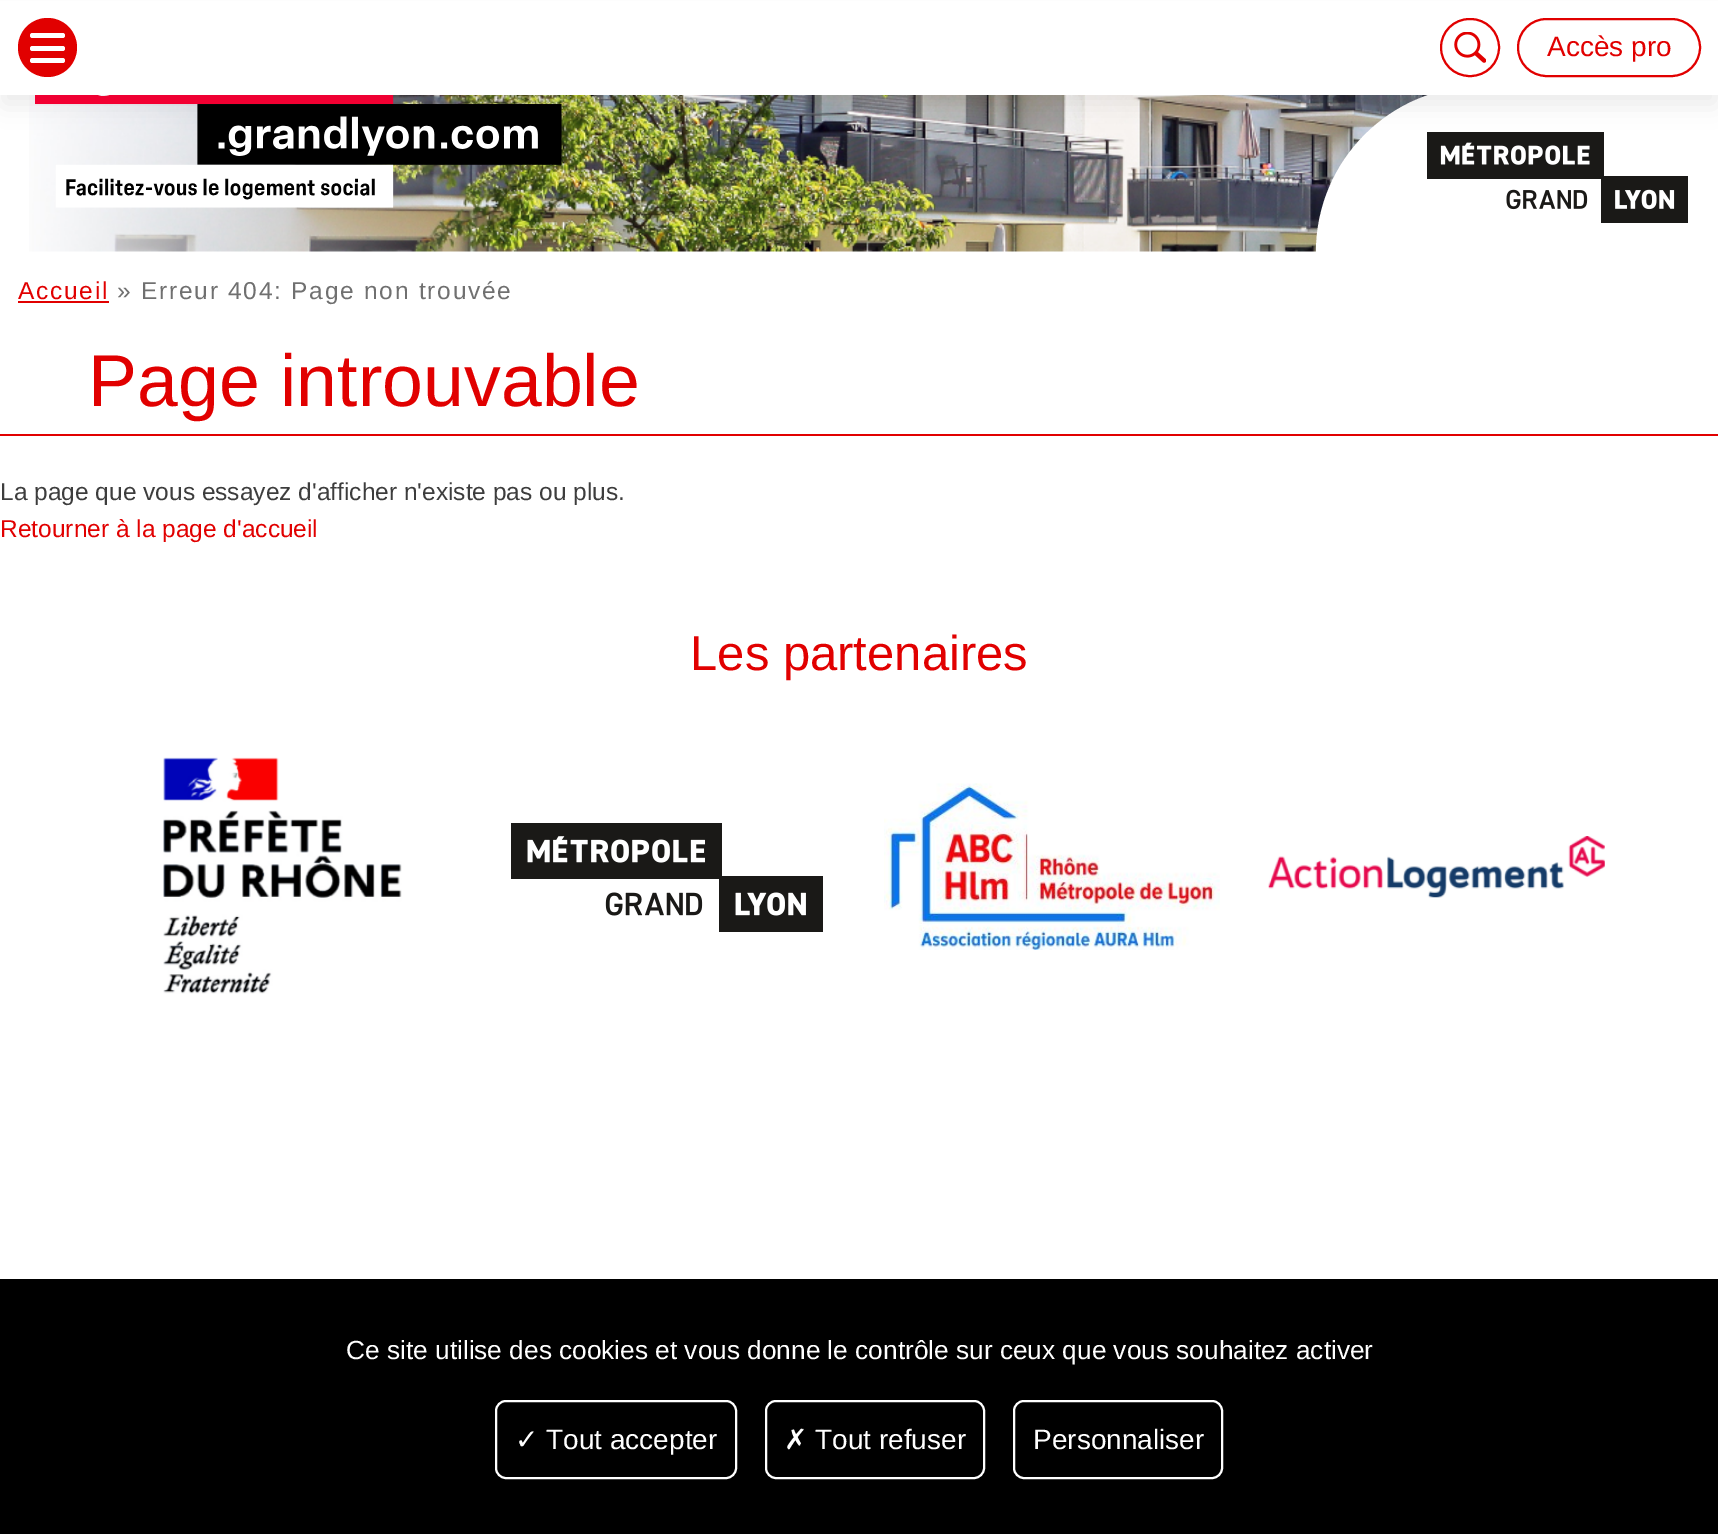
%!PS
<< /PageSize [1718 1534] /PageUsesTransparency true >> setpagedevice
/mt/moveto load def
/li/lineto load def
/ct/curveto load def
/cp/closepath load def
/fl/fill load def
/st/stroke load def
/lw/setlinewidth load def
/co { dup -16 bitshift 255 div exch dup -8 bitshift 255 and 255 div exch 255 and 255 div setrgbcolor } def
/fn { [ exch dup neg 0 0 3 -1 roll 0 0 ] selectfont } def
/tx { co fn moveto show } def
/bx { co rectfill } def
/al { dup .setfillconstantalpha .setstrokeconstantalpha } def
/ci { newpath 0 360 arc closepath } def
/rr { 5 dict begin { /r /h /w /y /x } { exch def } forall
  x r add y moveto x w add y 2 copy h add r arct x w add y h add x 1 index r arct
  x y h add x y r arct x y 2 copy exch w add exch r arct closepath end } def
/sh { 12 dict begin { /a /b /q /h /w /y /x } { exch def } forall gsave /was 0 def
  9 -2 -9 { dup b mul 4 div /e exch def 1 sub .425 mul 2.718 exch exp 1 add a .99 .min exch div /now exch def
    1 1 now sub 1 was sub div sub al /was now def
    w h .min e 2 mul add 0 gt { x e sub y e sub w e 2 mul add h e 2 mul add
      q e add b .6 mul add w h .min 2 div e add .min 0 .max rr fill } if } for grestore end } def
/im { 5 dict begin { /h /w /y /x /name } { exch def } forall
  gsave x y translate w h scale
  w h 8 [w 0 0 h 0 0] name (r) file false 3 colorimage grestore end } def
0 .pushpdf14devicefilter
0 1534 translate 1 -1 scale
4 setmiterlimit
0 0 1718 1534 16#FFFFFF bx
(media/2.raw) 29 95 1399 157 im
(media/3.raw) 35 95 527 113 im
1482 86 mt 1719 86 li 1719 252 li 1316 252 li 1316 160.5 1390.5 86 1482 86 ct cp fl
(media/4.raw) 1427 132 261 91 im
16#1A171B co
4 16 1711 87 0 12 .1 sh
0 1 1718 94 16#FFFFFF bx
16#E10000 co
47.5 47.5 29.5 ci fl
16#FFFFFF co
30 33 35 5 2.5 rr fl
30 46 35 5 2.5 rr fl
30 58 35 5 2.5 rr fl
16#E10000 co
2 lw
1441 19 58 57 28.5 rr st
(media/1.raw) 1454 32 32 31 im
1518 19 182 57 28.5 rr st
18 301 91 2 16#E10000 bx
0 434 1718 2 16#E10000 bx
(media/5.raw) 163 757 239 237 im
(media/6.raw) 511 823 312 109 im
(media/7.raw) 884 783 336 167 im
(media/8.raw) 1268 836 337 62 im
0 1279 1718 255 16#000000 bx
16#FFFFFF co
496 1401 240 77 10 rr st
766 1401 218 77 10 rr st
1014 1401 208 77 10 rr st
(Accès pro) 1547 56 /LiberationSans-Regular 28 16#E10000 tx
/LiberationSans-Regular 24.5 fn
18 299 mt 1.75 0 (Accueil) ashow
16#707070 co
117 299 mt 1.75 0 (» Erreur 404: Page non trouvée) ashow
(Page introuvable) 88 406 /LiberationSans-Regular 73.5 16#E10000 tx
(La page que vous essayez d'afficher n'existe pas ou plus.) 0 500 /LiberationSans-Regular 24.5 16#3D3D3D tx
(Retourner à la page d'accueil) 0 537 /LiberationSans-Regular 24.5 16#E10000 tx
(Les partenaires) 690 670 /LiberationSans-Regular 49 16#E10000 tx
(Ce site utilise des cookies et vous donne le contrôle sur ceux que vous souhaitez activer) 346 1359 /LiberationSans-Regular 26.25 16#FFFFFF tx
(✓) 515 1449 /DejaVuSans-Regular 28 16#FFFFFF tx
(Tout accepter) 546 1449 /LiberationSans-Regular 28 16#FFFFFF tx
(✗) 784 1449 /DejaVuSans-Regular 28 16#FFFFFF tx
(Tout refuser) 815 1449 /LiberationSans-Regular 28 16#FFFFFF tx
(Personnaliser) 1033 1449 /LiberationSans-Regular 28 16#FFFFFF tx
.poppdf14devicefilter showpage
